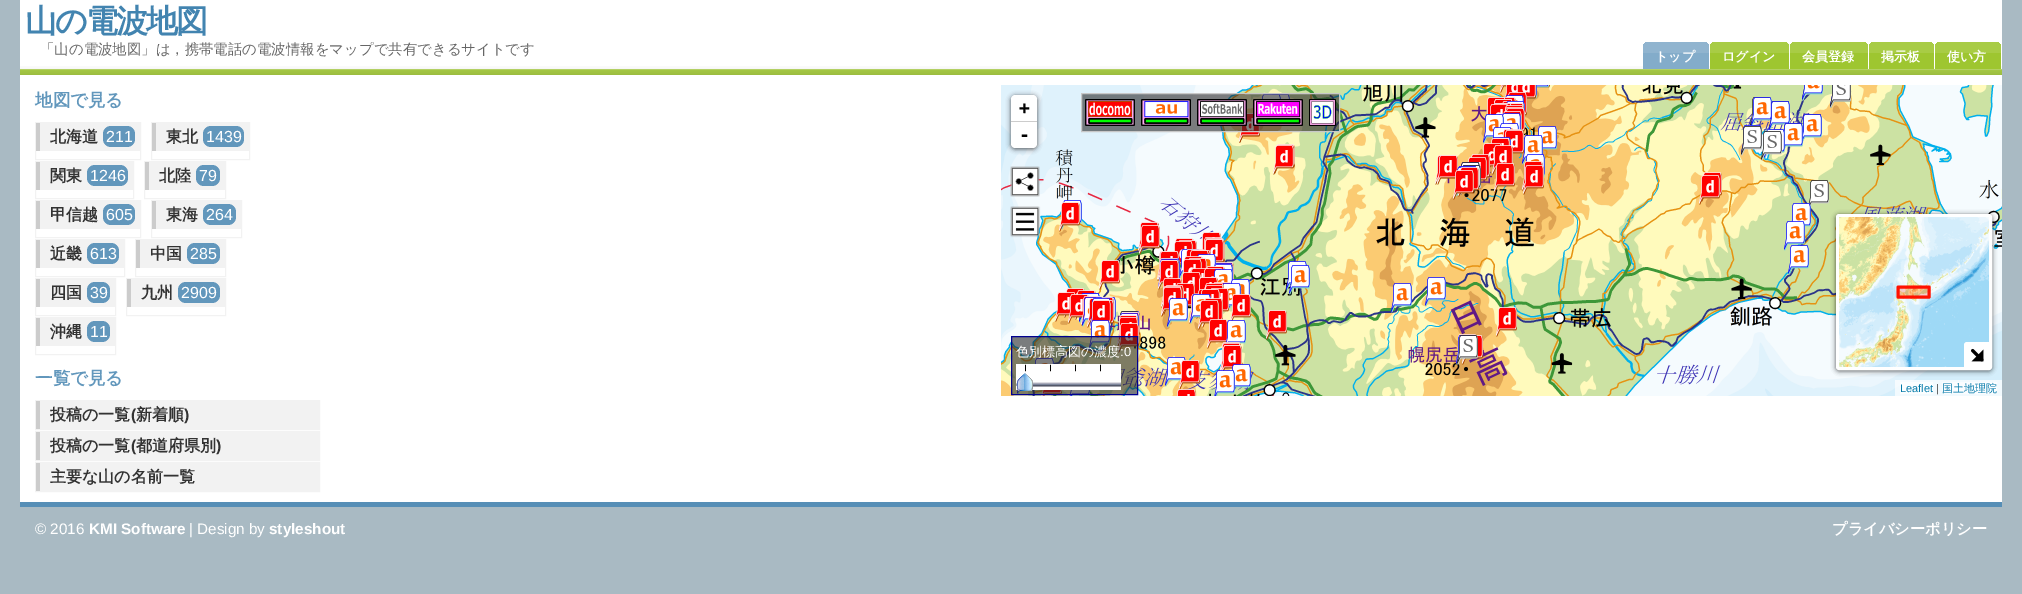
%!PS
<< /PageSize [2022 594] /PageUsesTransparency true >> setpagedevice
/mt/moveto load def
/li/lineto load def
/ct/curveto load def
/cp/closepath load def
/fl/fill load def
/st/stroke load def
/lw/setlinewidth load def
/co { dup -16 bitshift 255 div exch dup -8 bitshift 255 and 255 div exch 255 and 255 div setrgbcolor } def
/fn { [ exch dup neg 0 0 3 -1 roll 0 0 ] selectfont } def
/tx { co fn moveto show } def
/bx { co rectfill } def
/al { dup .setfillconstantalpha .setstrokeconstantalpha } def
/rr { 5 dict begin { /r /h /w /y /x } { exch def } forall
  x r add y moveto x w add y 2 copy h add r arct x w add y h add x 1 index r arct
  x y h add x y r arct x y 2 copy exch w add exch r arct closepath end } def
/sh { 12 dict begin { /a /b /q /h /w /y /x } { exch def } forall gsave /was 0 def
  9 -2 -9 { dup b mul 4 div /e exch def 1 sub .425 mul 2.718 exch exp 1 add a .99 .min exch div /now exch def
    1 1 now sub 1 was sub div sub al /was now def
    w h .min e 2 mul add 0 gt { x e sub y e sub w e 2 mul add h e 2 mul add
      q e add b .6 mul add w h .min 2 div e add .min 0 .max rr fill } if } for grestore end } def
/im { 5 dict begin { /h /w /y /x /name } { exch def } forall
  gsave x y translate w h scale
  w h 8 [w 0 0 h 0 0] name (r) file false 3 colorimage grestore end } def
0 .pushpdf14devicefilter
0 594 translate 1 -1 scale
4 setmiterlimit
0 0 2022 594 16#A9BAC3 bx
20 0 1982 502 16#FFFFFF bx
(media/1.raw) 20 66 1982 9 im
(media/2.raw) 1643 42 4 27 im
(media/3.raw) 1647 42 62 27 im
(media/4.raw) 1710 42 4 27 im
(media/5.raw) 1714 42 76 27 im
(media/4.raw) 1790 42 4 27 im
(media/6.raw) 1794 42 74 27 im
(media/4.raw) 1869 42 4 27 im
(media/7.raw) 1873 42 61 27 im
(media/4.raw) 1935 42 4 27 im
(media/8.raw) 1939 42 62 27 im
16#F2F2F2 co
35.5 122.5 105 37 rectstroke
40 123 100 28 16#F2F2F2 bx
36 123 4 28 16#CCCCCC bx
16#6297BC co
103 126 32 21 8 rr fl
16#F2F2F2 co
151.5 122.5 98 37 rectstroke
156 123 93 28 16#F2F2F2 bx
152 123 4 28 16#CCCCCC bx
16#6297BC co
203 126 41 21 8 rr fl
16#F2F2F2 co
35.5 161.5 98 37 rectstroke
40 162 93 28 16#F2F2F2 bx
36 162 4 28 16#CCCCCC bx
16#6297BC co
87 165 41 21 8 rr fl
16#F2F2F2 co
144.5 161.5 81 37 rectstroke
149 162 76 28 16#F2F2F2 bx
145 162 4 28 16#CCCCCC bx
16#6297BC co
196 165 24 21 8 rr fl
16#F2F2F2 co
35.5 200.5 105 37 rectstroke
40 201 100 28 16#F2F2F2 bx
36 201 4 28 16#CCCCCC bx
16#6297BC co
103 204 32 21 8 rr fl
16#F2F2F2 co
151.5 200.5 90 37 rectstroke
156 201 85 28 16#F2F2F2 bx
152 201 4 28 16#CCCCCC bx
16#6297BC co
203 204 33 21 8 rr fl
16#F2F2F2 co
35.5 239.5 89 37 rectstroke
40 240 84 28 16#F2F2F2 bx
36 240 4 28 16#CCCCCC bx
16#6297BC co
87 243 32 21 8 rr fl
16#F2F2F2 co
135.5 239.5 90 37 rectstroke
140 240 85 28 16#F2F2F2 bx
136 240 4 28 16#CCCCCC bx
16#6297BC co
187 243 33 21 8 rr fl
16#F2F2F2 co
35.5 278.5 80 37 rectstroke
40 279 75 28 16#F2F2F2 bx
36 279 4 28 16#CCCCCC bx
16#6297BC co
87 282 23 21 8 rr fl
16#F2F2F2 co
126.5 278.5 99 37 rectstroke
131 279 94 28 16#F2F2F2 bx
127 279 4 28 16#CCCCCC bx
16#6297BC co
178 282 42 21 8 rr fl
16#F2F2F2 co
35.5 317.5 80 37 rectstroke
40 318 75 28 16#F2F2F2 bx
36 318 4 28 16#CCCCCC bx
16#6297BC co
87 321 23 21 8 rr fl
16#F2F2F2 co
35.5 400.5 284 29 rectstroke
40 401 279 28 16#F2F2F2 bx
36 401 4 28 16#CCCCCC bx
16#F2F2F2 co
35.5 431.5 284 29 rectstroke
40 432 279 28 16#F2F2F2 bx
36 432 4 28 16#CCCCCC bx
16#F2F2F2 co
35.5 462.5 284 29 rectstroke
40 463 279 28 16#F2F2F2 bx
36 463 4 28 16#CCCCCC bx
(media/14.raw) 1001 85 90 197 im
(media/15.raw) 1091 85 256 197 im
(media/41.raw) 1272 94 18 5 im
(media/38.raw) 1262 94 19 5 im
(media/63.raw) 1239 113 21 30 im
(media/65.raw) 1239 113 21 30 im
0.6 al
16#282828 co
1081.5 93.5 mt 1339.5 93.5 li 1339.5 131.5 li 1081.5 131.5 li cp fl
1 al
16#C8C8C8 co
1081.5 93.5 mt 1339.5 93.5 li 1339.5 131.5 li 1081.5 131.5 li cp st
(media/9.raw) 1085 99 50 27 im
(media/10.raw) 1141 99 50 27 im
(media/11.raw) 1197 99 50 27 im
(media/12.raw) 1253 99 50 27 im
(media/13.raw) 1309 99 27 27 im
(media/16.raw) 1347 85 256 197 im
(media/17.raw) 1603 85 256 197 im
(media/18.raw) 1859 85 143 197 im
(media/19.raw) 1001 282 90 114 im
(media/20.raw) 1091 282 256 114 im
(media/21.raw) 1347 282 256 114 im
(media/22.raw) 1603 282 256 114 im
(media/23.raw) 1859 282 143 114 im
(media/24.raw) 1500 85 7 8 im
(media/25.raw) 1505 85 13 13 im
(media/29.raw) 1536 85 14 3 im
(media/30.raw) 1536 85 13 3 im
(media/46.raw) 1526 98 5 1 im
(media/28.raw) 1526 85 11 14 im
(media/26.raw) 1517 85 19 14 im
(media/27.raw) 1517 85 19 14 im
(media/31.raw) 1802 85 21 16 im
(media/32.raw) 1802 85 21 16 im
(media/33.raw) 1827 85 2 1 im
(media/34.raw) 1830 85 21 22 im
(media/35.raw) 1830 85 21 23 im
(media/36.raw) 1830 85 21 23 im
(media/37.raw) 1830 85 21 23 im
(media/39.raw) 1508 92 19 24 im
(media/40.raw) 1830 85 21 23 im
(media/43.raw) 1505 95 19 8 im
(media/44.raw) 1498 97 18 5 im
(media/42.raw) 1485 97 21 30 im
(media/45.raw) 1750 97 21 29 im
(media/47.raw) 1751 97 21 29 im
(media/48.raw) 1494 99 19 6 im
(media/49.raw) 1494 99 19 6 im
(media/50.raw) 1502 101 18 3 im
(media/51.raw) 1506 101 19 24 im
(media/52.raw) 1769 101 21 29 im
(media/53.raw) 1493 103 18 2 im
(media/54.raw) 1769 101 21 29 im
(media/55.raw) 1493 103 18 2 im
(media/56.raw) 1493 103 18 2 im
(media/58.raw) 1506 103 18 7 im
(media/57.raw) 1493 103 19 3 im
(media/59.raw) 1490 104 19 12 im
(media/60.raw) 1505 105 19 7 im
(media/61.raw) 1505 107 19 5 im
(media/62.raw) 1506 108 19 24 im
(media/64.raw) 1503 111 19 20 im
(media/67.raw) 1502 113 19 18 im
(media/66.raw) 1483 114 21 30 im
(media/68.raw) 1802 114 20 30 im
(media/69.raw) 1500 123 19 7 im
(media/71.raw) 1802 114 20 30 im
(media/70.raw) 1782 123 21 30 im
(media/72.raw) 1538 126 19 24 im
(media/73.raw) 1741 125 21 30 im
(media/74.raw) 1782 123 21 30 im
(media/75.raw) 1493 127 19 12 im
(media/76.raw) 1503 129 19 9 im
(media/77.raw) 1741 126 21 30 im
(media/78.raw) 1764 129 21 30 im
(media/80.raw) 1505 130 19 24 im
(media/79.raw) 1490 137 21 30 im
(media/81.raw) 1522 135 21 30 im
(media/82.raw) 1761 131 21 30 im
(media/83.raw) 1489 138 21 30 im
(media/84.raw) 1274 144 21 30 im
(media/85.raw) 1483 143 19 24 im
(media/86.raw) 1273 145 21 30 im
(media/87.raw) 1435 155 21 30 im
(media/88.raw) 1471 154 19 24 im
(media/89.raw) 1492 145 21 30 im
(media/90.raw) 1524 154 21 26 im
(media/91.raw) 1437 155 21 30 im
(media/92.raw) 1468 157 19 24 im
(media/93.raw) 1522 161 21 30 im
(media/94.raw) 1461 162 19 5 im
(media/95.raw) 1461 162 19 5 im
(media/96.raw) 1461 162 19 5 im
(media/97.raw) 1494 163 21 30 im
(media/98.raw) 1460 165 21 30 im
(media/99.raw) 1460 165 21 30 im
(media/100.raw) 1460 165 21 30 im
(media/101.raw) 1460 165 21 30 im
(media/107.raw) 1460 166 21 29 im
(media/102.raw) 1460 165 21 30 im
(media/103.raw) 1460 165 21 30 im
(media/104.raw) 1523 165 21 30 im
(media/105.raw) 1456 166 21 30 im
(media/106.raw) 1456 166 21 30 im
(media/108.raw) 1455 167 21 30 im
(media/109.raw) 1458 167 21 30 im
(media/110.raw) 1453 170 21 30 im
(media/111.raw) 1701 172 21 30 im
(media/112.raw) 1699 175 21 30 im
(media/113.raw) 1808 180 21 28 im
(media/114.raw) 1061 200 21 30 im
(media/115.raw) 1059 202 21 30 im
(media/116.raw) 1791 203 20 24 im
(media/117.raw) 1138 222 21 30 im
(media/118.raw) 1784 221 21 30 im
(media/119.raw) 1139 225 21 30 im
(media/120.raw) 1202 232 19 19 im
(media/121.raw) 1175 238 19 5 im
(media/122.raw) 1204 237 19 14 im
(media/123.raw) 1205 238 19 13 im
(media/126.raw) 1206 239 19 24 im
(media/124.raw) 1205 239 19 24 im
(media/125.raw) 1178 240 19 26 im
(media/127.raw) 1174 241 19 24 im
(media/128.raw) 1788 245 21 30 im
(media/129.raw) 1179 249 20 30 im
(media/130.raw) 1186 249 19 8 im
(media/133.raw) 1193 250 18 5 im
(media/131.raw) 1190 250 19 7 im
(media/132.raw) 1157 251 21 30 im
(media/134.raw) 1158 251 21 30 im
(media/136.raw) 1197 254 19 15 im
(media/135.raw) 1182 256 21 27 im
(media/138.raw) 1159 258 21 30 im
(media/137.raw) 1158 258 21 30 im
(media/139.raw) 1188 258 19 11 im
(media/140.raw) 1099 260 21 30 im
(media/141.raw) 1158 259 21 30 im
(media/142.raw) 1181 259 21 25 im
(media/143.raw) 1158 260 21 30 im
(media/144.raw) 1215 262 19 19 im
(media/145.raw) 1286 261 21 30 im
(media/146.raw) 1214 263 19 18 im
(media/147.raw) 1214 264 19 17 im
(media/148.raw) 1214 264 19 17 im
(media/149.raw) 1214 264 19 17 im
(media/150.raw) 1289 265 21 30 im
(media/152.raw) 1206 266 19 4 im
(media/151.raw) 1191 268 18 11 im
(media/153.raw) 1182 272 19 23 im
(media/154.raw) 1204 268 19 10 im
(media/155.raw) 1214 269 19 15 im
(media/156.raw) 1199 277 19 14 im
(media/157.raw) 1161 278 21 30 im
(media/158.raw) 1176 283 19 24 im
(media/159.raw) 1199 277 19 14 im
(media/161.raw) 1229 279 21 30 im
(media/160.raw) 1213 282 19 24 im
(media/162.raw) 1425 277 21 30 im
(media/163.raw) 1163 285 21 30 im
(media/165.raw) 1222 283 19 24 im
(media/164.raw) 1205 283 19 7 im
(media/166.raw) 1391 283 21 30 im
(media/167.raw) 1161 286 21 30 im
(media/168.raw) 1205 285 19 5 im
(media/169.raw) 1064 288 21 30 im
(media/170.raw) 1161 287 21 30 im
(media/172.raw) 1210 288 19 24 im
(media/171.raw) 1196 289 20 30 im
(media/174.raw) 1075 290 21 30 im
(media/173.raw) 1055 292 21 30 im
(media/175.raw) 1199 289 21 30 im
(media/176.raw) 1079 293 21 30 im
(media/178.raw) 1079 293 21 30 im
(media/177.raw) 1068 294 21 30 im
(media/179.raw) 1189 294 21 30 im
(media/180.raw) 1081 296 21 30 im
(media/181.raw) 1190 294 21 30 im
(media/182.raw) 1230 294 21 27 im
(media/185.raw) 1098 297 18 24 im
(media/184.raw) 1096 297 18 24 im
(media/183.raw) 1082 297 21 30 im
(media/186.raw) 1087 298 20 30 im
(media/187.raw) 1090 298 21 30 im
(media/188.raw) 1167 298 21 30 im
(media/189.raw) 1202 298 21 30 im
(media/191.raw) 1096 300 18 24 im
(media/190.raw) 1090 300 21 30 im
(media/196.raw) 1120 311 20 30 im
(media/197.raw) 1120 311 20 30 im
(media/192.raw) 1118 311 21 30 im
(media/193.raw) 1198 300 21 30 im
(media/194.raw) 1266 310 21 30 im
(media/195.raw) 1496 307 21 30 im
(media/198.raw) 1119 312 21 30 im
(media/199.raw) 1118 313 21 30 im
(media/200.raw) 1117 315 21 30 im
(media/201.raw) 1089 320 21 30 im
(media/202.raw) 1117 317 21 30 im
(media/203.raw) 1207 319 21 30 im
(media/204.raw) 1226 320 20 24 im
(media/205.raw) 1118 323 21 30 im
(media/206.raw) 1456 334 21 30 im
(media/210.raw) 1462 335 21 30 im
(media/207.raw) 1456 335 21 30 im
(media/208.raw) 1457 335 21 30 im
(media/209.raw) 1220 342 21 29 im
(media/211.raw) 1220 343 21 28 im
(media/212.raw) 1221 345 21 26 im
(media/213.raw) 1035 358 19 6 im
(media/214.raw) 1165 357 21 30 im
(media/215.raw) 1179 360 21 30 im
(media/216.raw) 1221 345 21 26 im
(media/217.raw) 1017 390 3 4 im
(media/218.raw) 1041 390 21 6 im
(media/219.raw) 1069 390 21 6 im
(media/220.raw) 1177 389 19 7 im
(media/222.raw) 1230 364 21 30 im
(media/221.raw) 1214 370 21 26 im
16#000000 co
1011 96 26 53 4 2.5 .65 sh
16#FFFFFF co
1015 95 mt 1033 95 li 1035 95 1037 97 1037 99 ct 1037 122 li 1011 122 li 1011 99 li 1011 97 1013 95 1015 95 ct cp fl
1011 121 26 1 16#CCCCCC bx
16#FFFFFF co
1011 122 mt 1037 122 li 1037 144 li 1037 146 1035 148 1033 148 ct 1015 148 li 1013 148 1011 146 1011 144 ct cp fl
16#000000 co
1836 215 156 156 3 2.5 .65 sh
16#FFFFFF co
3 lw
1837.5 215.5 153 153 1.5 rr st
(media/223.raw) 1839 217 30 92 im
(media/224.raw) 1869 217 120 92 im
(media/225.raw) 1839 309 30 58 im
(media/226.raw) 1869 309 120 58 im
0.2 al
1899 288 29 8 16#FF1100 bx
1 al
1 setlinecap
1 setlinejoin
1898 297 mt 1898 287 li 1929 287 li 1929 297 li cp st
16#FFFFFF co
1967 342 mt 1989 342 li 1989 367 li 1964 367 li 1964 345 li 1964 343.5 1965.5 342 1967 342 ct cp fl
(media/227.raw) 1971 348 13 14 im
0.7 al
1895 380 107 16 16#FFFFFF bx
1900 382 33 12 16#FFFFFF bx
1 al
1942 382 55 12 16#FBFDFF bx
(media/228.raw) 1010 166 30 31 im
(media/229.raw) 1010 206 31 32 im
0.6 al
16#282828 co
1011.5 336.5 mt 1137.5 336.5 li 1137.5 394.5 li 1011.5 394.5 li cp fl
1 al
16#000090 co
1 lw
0 setlinecap
0 setlinejoin
1011.5 336.5 mt 1137.5 336.5 li 1137.5 394.5 li 1011.5 394.5 li cp st
(media/230.raw) 1016 364 105 26 im
(media/231.raw) 1017 373 16 18 im
20 502 1982 5 16#568EB6 bx
/WenQuanYiZenHei-Bold 32 fn
16#4284B0 co
25 32 mt -2 0 (山の電波地図) ashow
(「山の電波地図」は，携帯電話の電波情報をマップで共有できるサイトです) 40 54 /WenQuanYiZenHei-Medium 14.4 16#666666 tx
(トップ) 1655 61 /WenQuanYiZenHei-Bold 13 16#FFFFFF tx
(ログイン) 1722 61 /WenQuanYiZenHei-Bold 13 16#FFFFFF tx
(会員登録) 1802 61 /WenQuanYiZenHei-Bold 13 16#FFFFFF tx
(掲示板) 1881 61 /WenQuanYiZenHei-Bold 13 16#FFFFFF tx
(使い方) 1947 61 /WenQuanYiZenHei-Bold 13 16#FFFFFF tx
(地図で見る) 35 106 /WenQuanYiZenHei-Bold 17.5 16#6297BC tx
(北海道) 50 142 /WenQuanYiZenHei-Bold 16 16#333333 tx
(211) 106 142 /LiberationSans-Regular 16 16#FFFFFF tx
(東北) 166 142 /WenQuanYiZenHei-Bold 16 16#333333 tx
(1439) 206 142 /LiberationSans-Regular 16 16#FFFFFF tx
(関東) 50 181 /WenQuanYiZenHei-Bold 16 16#333333 tx
(1246) 90 181 /LiberationSans-Regular 16 16#FFFFFF tx
(北陸) 159 181 /WenQuanYiZenHei-Bold 16 16#333333 tx
(79) 199 181 /LiberationSans-Regular 16 16#FFFFFF tx
(甲信越) 50 220 /WenQuanYiZenHei-Bold 16 16#333333 tx
(605) 106 220 /LiberationSans-Regular 16 16#FFFFFF tx
(東海) 166 220 /WenQuanYiZenHei-Bold 16 16#333333 tx
(264) 206 220 /LiberationSans-Regular 16 16#FFFFFF tx
(近畿) 50 259 /WenQuanYiZenHei-Bold 16 16#333333 tx
(613) 90 259 /LiberationSans-Regular 16 16#FFFFFF tx
(中国) 150 259 /WenQuanYiZenHei-Bold 16 16#333333 tx
(285) 190 259 /LiberationSans-Regular 16 16#FFFFFF tx
(四国) 50 298 /WenQuanYiZenHei-Bold 16 16#333333 tx
(39) 90 298 /LiberationSans-Regular 16 16#FFFFFF tx
(九州) 141 298 /WenQuanYiZenHei-Bold 16 16#333333 tx
(2909) 181 298 /LiberationSans-Regular 16 16#FFFFFF tx
(沖縄) 50 337 /WenQuanYiZenHei-Bold 16 16#333333 tx
(11) 90 337 /LiberationSans-Regular 16 16#FFFFFF tx
(一覧で見る) 35 384 /WenQuanYiZenHei-Bold 17.5 16#6297BC tx
(投稿の一覧) 50 420 /WenQuanYiZenHei-Bold 16 16#333333 tx
(\() 131 420 /LiberationSans-Bold 16 16#333333 tx
(新着順) 136 420 /WenQuanYiZenHei-Bold 16 16#333333 tx
(\)) 184 420 /LiberationSans-Bold 16 16#333333 tx
(投稿の一覧) 50 451 /WenQuanYiZenHei-Bold 16 16#333333 tx
(\() 131 451 /LiberationSans-Bold 16 16#333333 tx
(都道府県別) 136 451 /WenQuanYiZenHei-Bold 16 16#333333 tx
(\)) 216 451 /LiberationSans-Bold 16 16#333333 tx
(主要な山の名前一覧) 50 482 /WenQuanYiZenHei-Bold 16 16#333333 tx
(+) 1019 114 /DejaVuSansMono-Bold 18 16#000000 tx
(-) 1019 141 /DejaVuSansMono-Bold 18 16#000000 tx
(Leaflet) 1900 392 /LiberationSans-Regular 11 16#0078A8 tx
(|) 1936 392 /LiberationSans-Regular 11 16#333333 tx
(国土地理院) 1942 392 /WenQuanYiZenHei-Medium 11 16#0078A8 tx
(色別標高図の濃度) 1016 356 /WenQuanYiZenHei-Medium 13 16#FFFFFF tx
(:0) 1120 356 /LiberationSans-Regular 13 16#FFFFFF tx
(© 2016) 35 534 /LiberationSans-Regular 15.25 16#FFFFFF tx
(KMI Software) 89 534 /LiberationSans-Bold 15.25 16#FFFFFF tx
(| Design by) 189 534 /LiberationSans-Regular 15.25 16#FFFFFF tx
(styleshout) 269 534 /LiberationSans-Bold 15.25 16#FFFFFF tx
(プライバシーポリシー) 1832 534 /WenQuanYiZenHei-Bold 15.25 16#FFFFFF tx
.poppdf14devicefilter showpage
